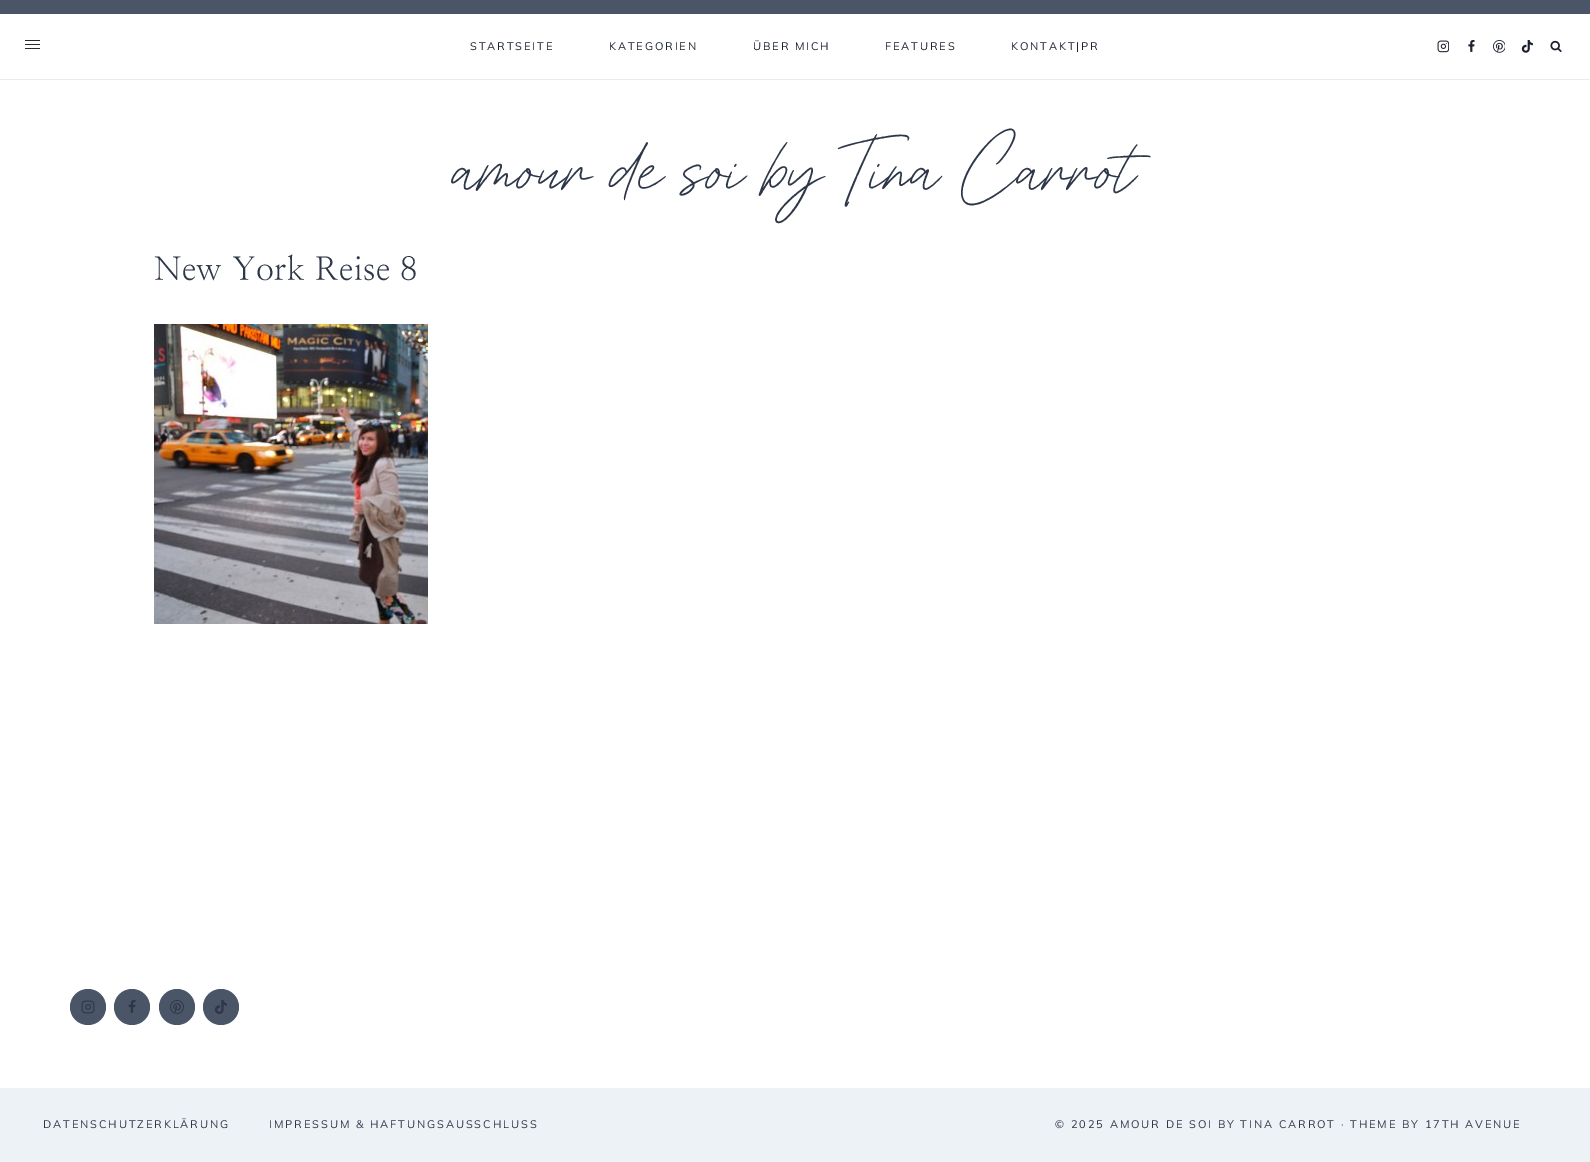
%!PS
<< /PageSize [1590 1162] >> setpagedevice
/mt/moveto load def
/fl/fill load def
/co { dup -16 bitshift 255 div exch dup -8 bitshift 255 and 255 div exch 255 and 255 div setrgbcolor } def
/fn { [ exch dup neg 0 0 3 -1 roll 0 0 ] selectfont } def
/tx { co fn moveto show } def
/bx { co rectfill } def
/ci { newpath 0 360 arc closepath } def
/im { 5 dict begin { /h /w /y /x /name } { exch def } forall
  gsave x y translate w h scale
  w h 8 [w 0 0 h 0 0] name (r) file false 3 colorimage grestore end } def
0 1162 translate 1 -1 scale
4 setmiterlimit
0 0 1590 1162 16#FFFFFF bx
0 0 1590 14 16#4A5568 bx
0 79 1590 1 16#EEEAE8 bx
25 40 15 1 16#2B2B2B bx
25 44 15 1 16#2B2B2B bx
25 48 15 1 16#2B2B2B bx
(media/1.raw) 1437 40 12 13 im
(media/2.raw) 1468 40 7 12 im
(media/3.raw) 1493 40 12 13 im
(media/4.raw) 1521 40 12 13 im
(media/5.raw) 1550 40 12 12 im
(media/6.raw) 154 324 274 300 im
16#4A5568 co
88 1007 18 ci fl
(media/7.raw) 81 1000 14 14 im
132 1007 18 ci fl
(media/8.raw) 128 1000 8 13 im
177 1007 18 ci fl
(media/9.raw) 170 1000 14 14 im
221 1007 18 ci fl
(media/10.raw) 215 1000 12 14 im
0 1088 1590 74 16#EDF2F7 bx
/Mulish-ExtraLight 11 fn
16#1A202C co
470 50 mt 1.9 0 (STARTSEITE) ashow
609 50 mt 1.9 0 (KATEGORIEN) ashow
753 50 mt 1.9 0 (ÜBER MICH) ashow
885 50 mt 1.9 0 (FEATURES) ashow
1011 50 mt 1.9 0 (KONTAKT|PR) ashow
(amour de soi by Tina Carrot) 453 191 /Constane-Regular 68 16#2D3748 tx
/NanumMyeongjo-Regular 32 fn
154 280 mt .6 0 (New York Reise 8) ashow
/Mulish-ExtraLight 11 fn
43 1128 mt 1.92 0 (DATENSCHUTZERKLÄRUNG) ashow
269 1128 mt 1.92 0 (IMPRESSUM & HAFTUNGSAUSSCHLUSS) ashow
1055 1128 mt 1.92 0 (© 2025 AMOUR DE SOI BY TINA CARROT · THEME BY 17TH AVENUE) ashow
showpage
